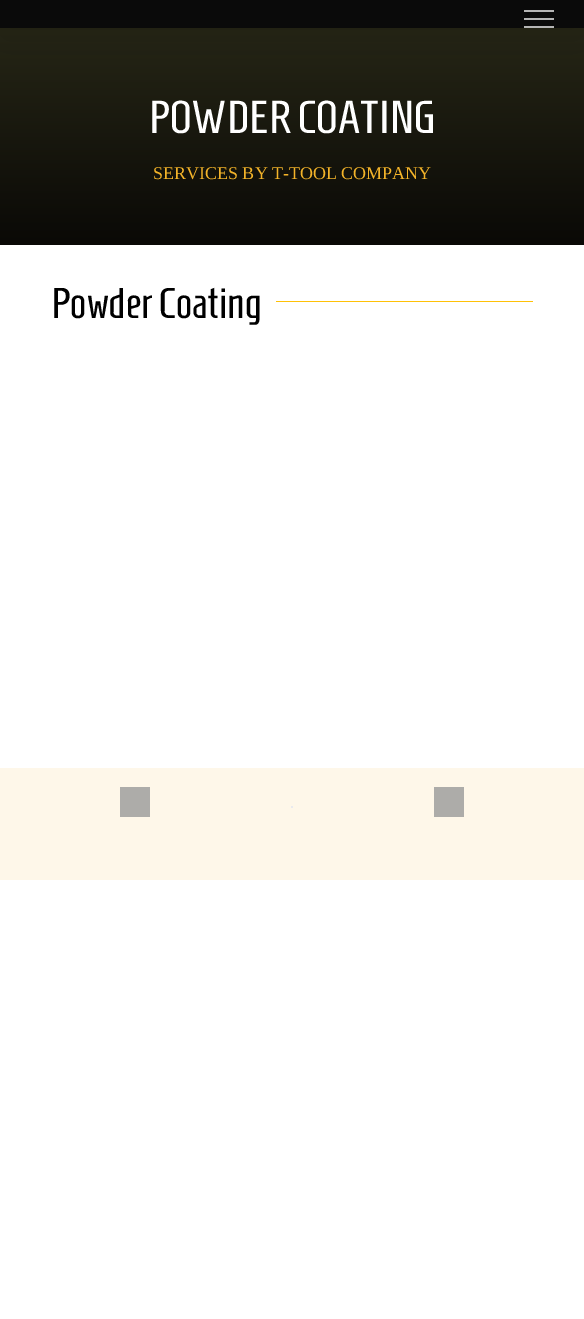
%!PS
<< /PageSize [584 1319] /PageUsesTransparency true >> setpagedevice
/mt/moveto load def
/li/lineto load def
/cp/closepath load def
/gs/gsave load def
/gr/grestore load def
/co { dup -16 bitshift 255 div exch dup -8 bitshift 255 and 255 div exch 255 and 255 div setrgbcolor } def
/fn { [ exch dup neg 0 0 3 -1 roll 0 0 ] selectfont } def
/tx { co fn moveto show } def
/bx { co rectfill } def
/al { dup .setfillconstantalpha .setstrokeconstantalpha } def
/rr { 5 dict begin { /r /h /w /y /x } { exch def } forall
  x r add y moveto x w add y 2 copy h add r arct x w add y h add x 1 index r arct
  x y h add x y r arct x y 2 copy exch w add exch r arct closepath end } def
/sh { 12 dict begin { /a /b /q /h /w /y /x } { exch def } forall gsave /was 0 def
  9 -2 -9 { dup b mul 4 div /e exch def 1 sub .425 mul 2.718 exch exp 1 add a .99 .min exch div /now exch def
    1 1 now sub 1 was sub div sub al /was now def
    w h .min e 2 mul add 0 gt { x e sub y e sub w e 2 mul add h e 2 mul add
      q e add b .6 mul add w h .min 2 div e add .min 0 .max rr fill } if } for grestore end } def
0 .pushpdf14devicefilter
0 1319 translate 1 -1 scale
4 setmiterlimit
0 0 584 1319 16#FFFFFF bx
gs 0 28 mt 584 28 li 584 245 li 0 245 li cp clip newpath
<< /ShadingType 2 /ColorSpace /DeviceRGB /Coords [292 28 292 245] /Extend [true true] /Function << /FunctionType 2 /Domain [0 1] /C0 [.149 .149 .086] /C1 [.039 .035 .024] /N 1 >> >> shfill gr
16#000000 co
2 12 580 24 0 25 .14 sh
0 0 584 28 16#0A0A0A bx
524 10 30 2 16#B5B5B5 bx
524 18 30 2 16#B5B5B5 bx
524 26 30 2 16#B5B5B5 bx
276 301 257 1 16#FFC107 bx
0 768 584 112 16#FEF7E9 bx
120 787 30 30 16#ADACA9 bx
291 806 2 2 16#E9EAEE bx
434 787 30 30 16#ADACA9 bx
(POWDER COATING) 149 133 /Homenaje-Regular 46 16#FFFFFF tx
(SERVICES BY T-TOOL COMPANY) 153 179 /LiberationSerif-Regular 18 16#F4B429 tx
(Powder Coating) 51 318 /Homenaje-Regular 43 16#000000 tx
.poppdf14devicefilter showpage
